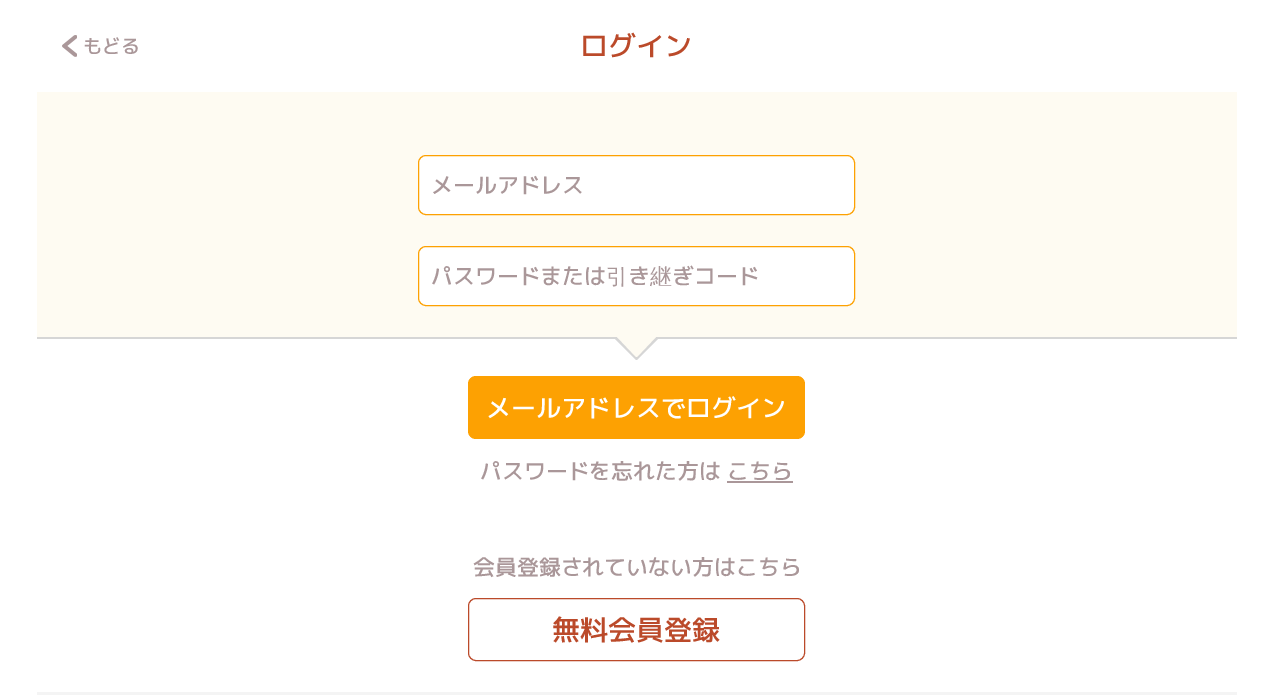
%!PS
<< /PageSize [1273 695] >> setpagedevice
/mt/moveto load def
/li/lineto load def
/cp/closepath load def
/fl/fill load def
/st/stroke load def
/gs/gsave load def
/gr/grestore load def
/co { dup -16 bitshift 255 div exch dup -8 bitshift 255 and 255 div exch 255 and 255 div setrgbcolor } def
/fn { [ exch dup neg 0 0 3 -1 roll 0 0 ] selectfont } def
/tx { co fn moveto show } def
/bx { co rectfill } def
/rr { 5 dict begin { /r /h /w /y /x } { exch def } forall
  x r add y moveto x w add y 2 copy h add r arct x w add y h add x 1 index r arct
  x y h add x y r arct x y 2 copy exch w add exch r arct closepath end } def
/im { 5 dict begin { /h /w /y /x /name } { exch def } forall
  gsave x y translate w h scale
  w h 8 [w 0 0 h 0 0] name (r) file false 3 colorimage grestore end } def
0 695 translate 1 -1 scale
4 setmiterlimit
0 0 1273 695 16#FFFFFF bx
(media/1.raw) 62 35 15 22 im
37 337 1200 2 16#D6D6D6 bx
37 92 1200 245 16#FEFBF2 bx
16#FFFFFF co
418.5 155.5 436 59 7.5 rr gs fl gr
16#FDA102 co
st
16#FFFFFF co
418.5 246.5 436 59 7.5 rr gs fl gr
16#FDA102 co
st
16#D6D6D6 co
637 360 mt 636 360 li 613 337 li 660 337 li cp fl
16#FEFBF2 co
617 337 mt 656 337 li 637 357 li 636 357 li cp fl
16#FDA102 co
468 376 337 63 8 rr fl
727 481 66 2 16#AA9799 bx
16#BB4A2A co
468.5 598.5 336 62 7.5 rr st
37 692 1200 3 16#F4F4F4 bx
(もどる) 83 53 /MPLUS1p-Medium 19 16#AA9799 tx
(ログイン) 580 56 /MPLUS1p-Medium 28 16#BB4A2A tx
(メールアドレス) 431 193 /MPLUS1p-Medium 21.9 16#AA9799 tx
(パスワードまたは) 431 284 /MPLUS1p-Medium 21.9 16#AA9799 tx
(引) 606 284 /WenQuanYiZenHei-Medium 21.9 16#AA9799 tx
(き) 628 284 /MPLUS1p-Medium 21.9 16#AA9799 tx
(継) 650 284 /WenQuanYiZenHei-Medium 21.9 16#AA9799 tx
(ぎコード) 672 284 /MPLUS1p-Medium 21.9 16#AA9799 tx
(メールアドレスでログイン) 486 417 /MPLUS1p-Medium 25 16#FFFFFF tx
(パスワードを忘れた方は こちら) 480 479 /MPLUS1p-Medium 21.9 16#AA9799 tx
(会員登録されていない方はこちら) 473 575 /MPLUS1p-Medium 21.9 16#AA9799 tx
(無料会員登録) 552 640 /MPLUS1p-Medium 28 16#BB4A2A tx
showpage
